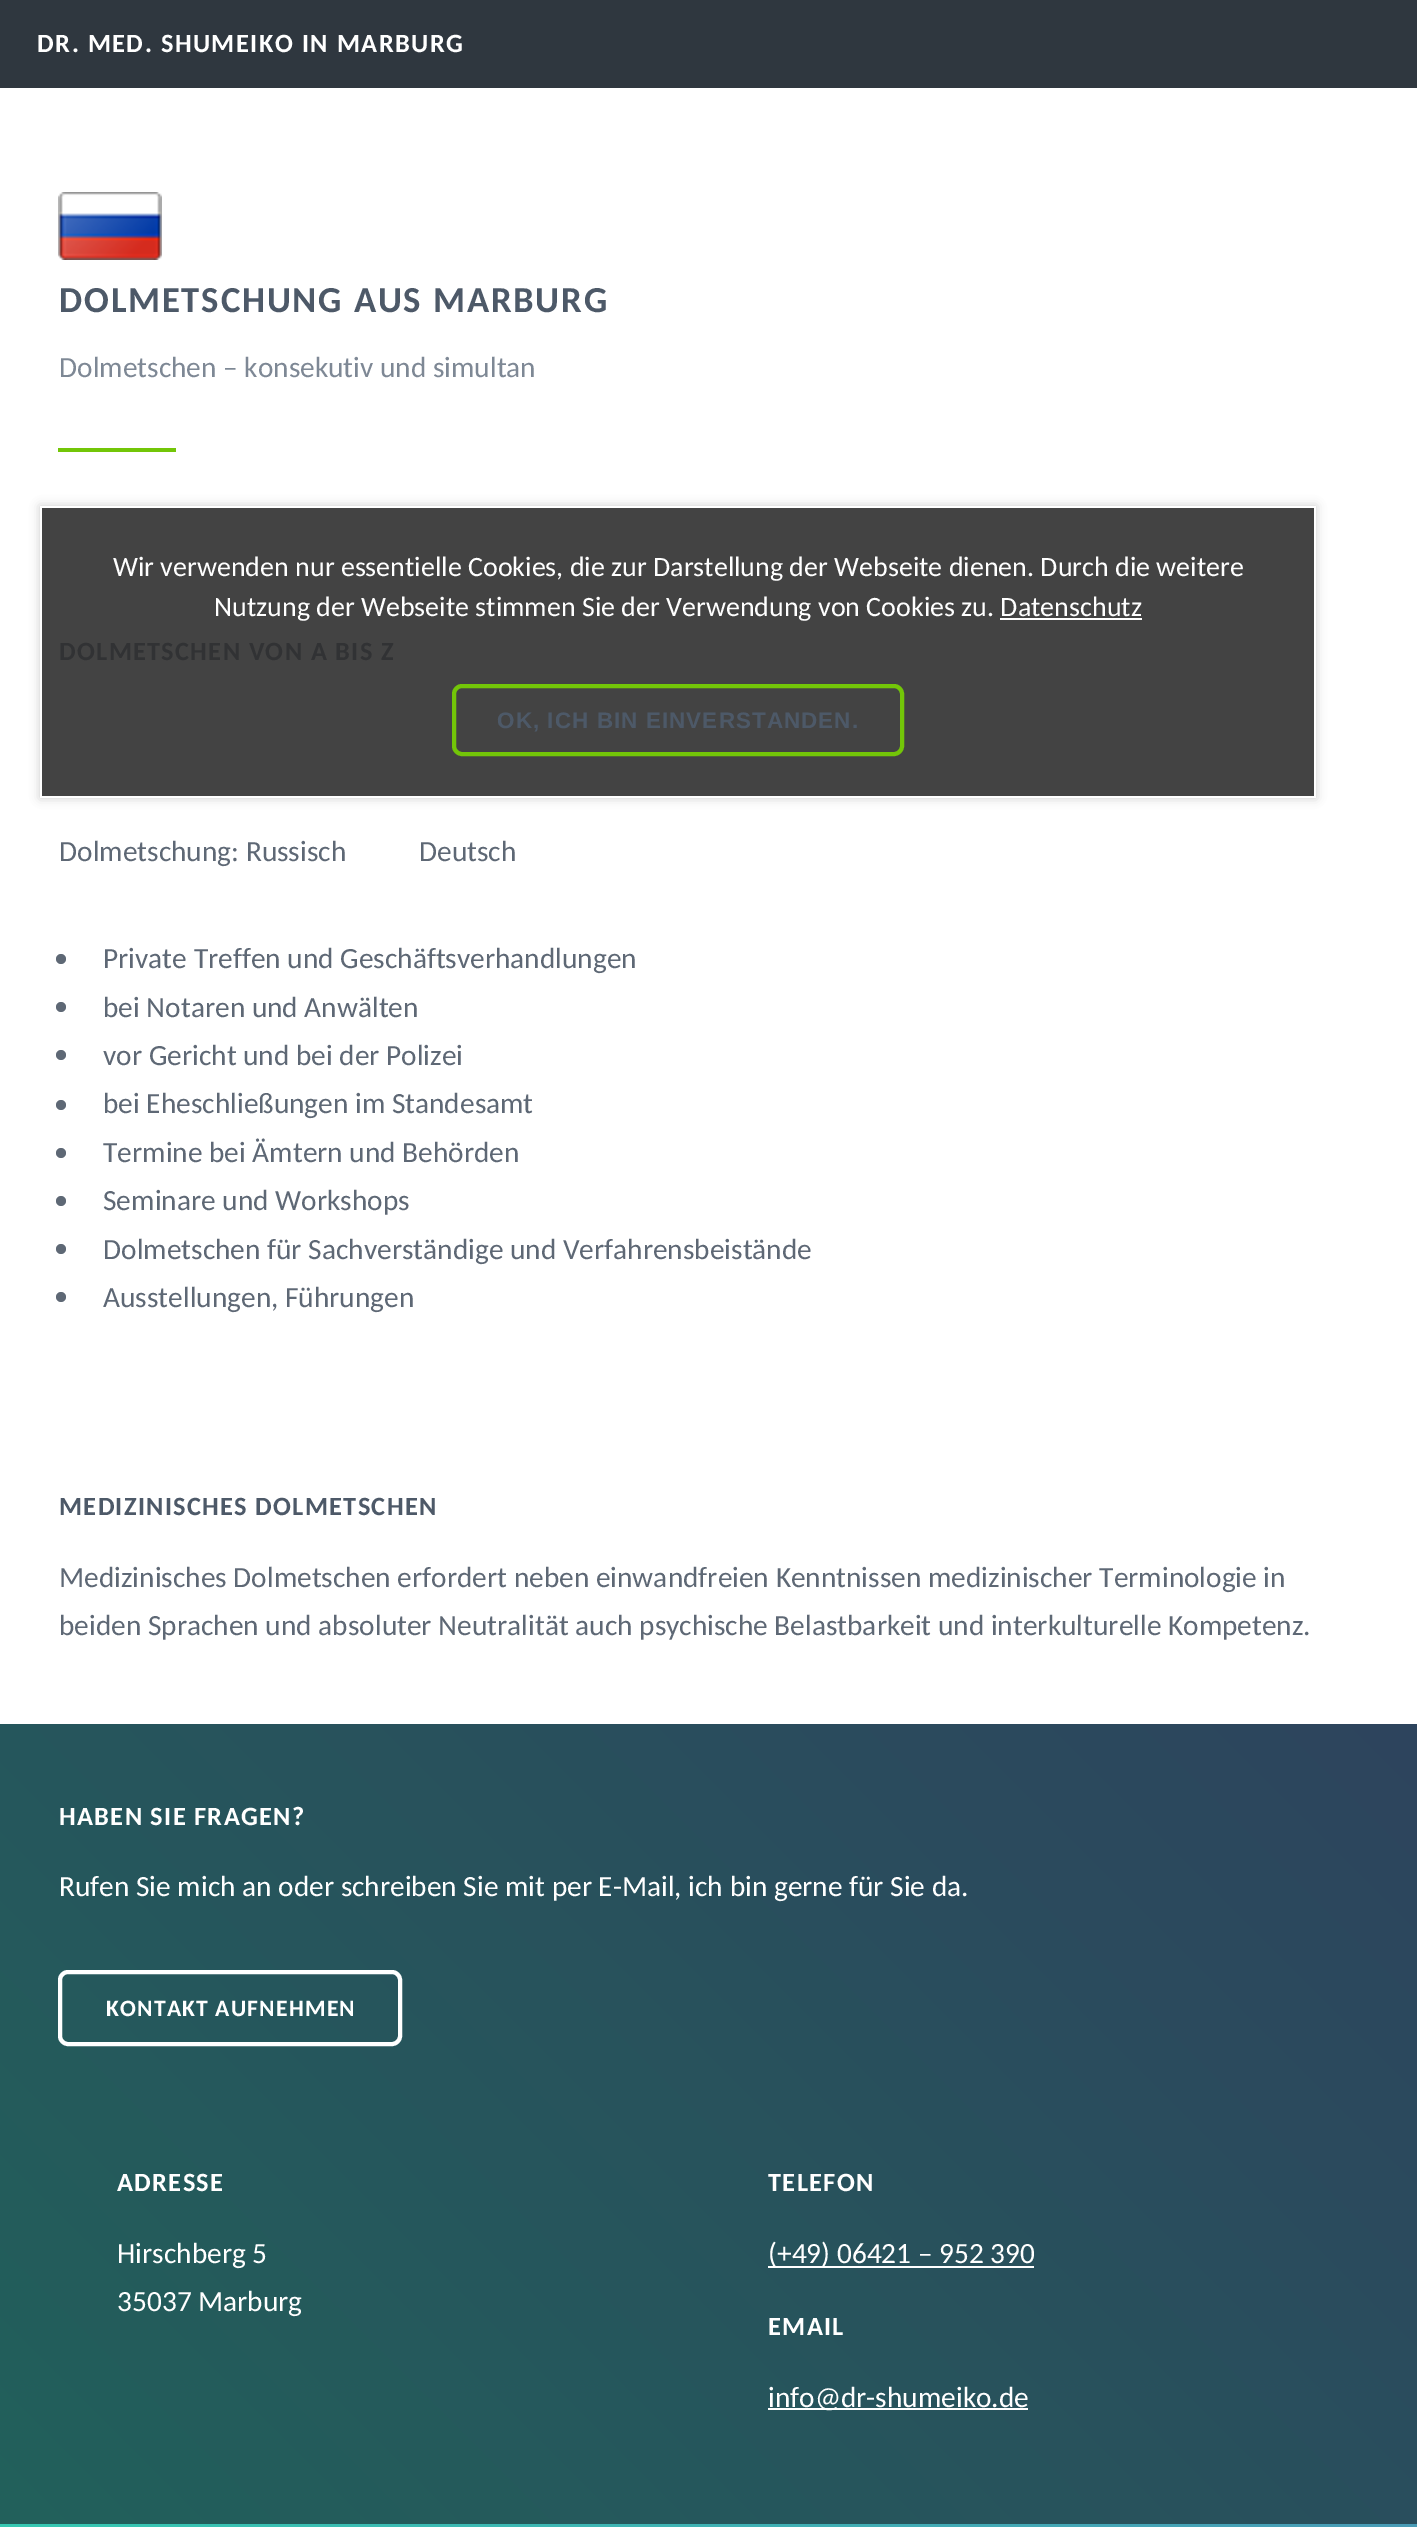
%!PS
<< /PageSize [1417 2527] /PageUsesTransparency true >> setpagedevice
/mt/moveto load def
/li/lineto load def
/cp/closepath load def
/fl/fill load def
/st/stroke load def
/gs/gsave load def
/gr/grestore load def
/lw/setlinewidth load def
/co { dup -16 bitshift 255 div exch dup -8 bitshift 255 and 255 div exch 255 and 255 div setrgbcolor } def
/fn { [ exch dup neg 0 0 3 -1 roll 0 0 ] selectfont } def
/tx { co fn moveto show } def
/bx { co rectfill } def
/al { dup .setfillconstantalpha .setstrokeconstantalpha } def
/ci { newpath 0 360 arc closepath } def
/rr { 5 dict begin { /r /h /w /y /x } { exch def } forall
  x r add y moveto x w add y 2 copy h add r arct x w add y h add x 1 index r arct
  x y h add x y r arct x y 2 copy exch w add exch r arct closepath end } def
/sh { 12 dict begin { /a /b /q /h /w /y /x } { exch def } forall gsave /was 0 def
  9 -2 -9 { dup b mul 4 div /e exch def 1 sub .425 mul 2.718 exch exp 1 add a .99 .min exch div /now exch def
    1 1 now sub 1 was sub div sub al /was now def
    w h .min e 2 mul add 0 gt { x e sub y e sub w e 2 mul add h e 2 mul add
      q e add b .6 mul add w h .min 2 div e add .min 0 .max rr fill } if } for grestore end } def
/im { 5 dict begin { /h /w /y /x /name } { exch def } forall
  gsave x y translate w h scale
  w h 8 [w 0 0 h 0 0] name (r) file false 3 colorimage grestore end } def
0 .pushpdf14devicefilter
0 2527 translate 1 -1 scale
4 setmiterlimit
0 0 1417 2527 16#FFFFFF bx
42 508 1272 288 16#434343 bx
0 0 1417 88 16#2F373F bx
(media/1.raw) 58 192 104 68 im
58 448 118 4 16#73C608 bx
16#5E6875 co
61 959 5 ci fl
61 1007 5 ci fl
61 1055 5 ci fl
61 1105 5 ci fl
61 1153 5 ci fl
61 1201 5 ci fl
61 1249 5 ci fl
61 1297 5 ci fl
gs
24 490 mt 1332 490 li 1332 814 li 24 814 li cp 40 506 mt 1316 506 li 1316 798 li 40 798 li cp eoclip newpath
16#000000 co
40 506 1276 292 0 5 .2 sh
gr
1000 618 142 2 16#FFFFFF bx
16#73C608 co
4 lw
454 686 448 68 8 rr st
gs 0 2524 mt 1417 2524 li 1417 2527 li 0 2527 li cp clip newpath
<< /ShadingType 2 /ColorSpace /DeviceRGB /Coords [-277 2251 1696 277] /Extend [true true] /Function << /FunctionType 2 /Domain [0 1] /C0 [.212 .788 .694] /C1 [.416 .29 .749] /N 1 >> >> shfill gr
gs 0 1724 mt 1417 1724 li 1417 2524 li 0 2524 li cp clip newpath
<< /ShadingType 2 /ColorSpace /DeviceRGB /Coords [-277 2251 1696 277] /Extend [true true] /Function << /FunctionType 2 /Domain [0 1] /C0 [.133 .38 .357] /C1 [.216 .18 .376] /N 1 >> >> shfill gr
16#FFFFFF co
60 1972 340 72 8 rr st
768 2266 266 2 16#FFFFFF bx
768 2408 260 2 16#FFFFFF bx
/Carlito-Bold 26.4 fn
37 52 mt 1.5 0 (DR. MED. SHUMEIKO IN MARBURG) ashow
/Carlito-Bold 36.7 fn
16#4D5968 co
59 312 mt 1.8 0 (DOLMETSCHUNG AUS MARBURG) ashow
(Dolmetschen – konsekutiv und simultan) 59 377 /Carlito-Regular 29.35 16#7E8895 tx
/Carlito-Bold 26.4 fn
16#313234 co
59 660 mt 1.3 0 (DOLMETSCHEN VON A BIS Z) ashow
(Dolmetschung: Russisch) 59 861 /Carlito-Regular 29.35 16#5E6875 tx
(Deutsch) 419 861 /Carlito-Regular 29.35 16#5E6875 tx
(Private Treffen und Geschäftsverhandlungen) 103 968 /Carlito-Regular 29.35 16#5E6875 tx
(bei Notaren und Anwälten) 103 1017 /Carlito-Regular 29.35 16#5E6875 tx
(vor Gericht und bei der Polizei) 103 1065 /Carlito-Regular 29.35 16#5E6875 tx
(bei Eheschließungen im Standesamt) 103 1113 /Carlito-Regular 29.35 16#5E6875 tx
(Termine bei Ämtern und Behörden) 103 1162 /Carlito-Regular 29.35 16#5E6875 tx
(Seminare und Workshops) 103 1210 /Carlito-Regular 29.35 16#5E6875 tx
(Dolmetschen für Sachverständige und Verfahrensbeistände) 103 1259 /Carlito-Regular 29.35 16#5E6875 tx
(Ausstellungen, Führungen) 103 1307 /Carlito-Regular 29.35 16#5E6875 tx
/Carlito-Bold 26.4 fn
16#4D5968 co
59 1515 mt 1.3 0 (MEDIZINISCHES DOLMETSCHEN) ashow
(Medizinisches Dolmetschen erfordert neben einwandfreien Kenntnissen medizinischer Terminologie in) 59 1587 /Carlito-Regular 29.35 16#5E6875 tx
(beiden Sprachen und absoluter Neutralität auch psychische Belastbarkeit und interkulturelle Kompetenz.) 59 1635 /Carlito-Regular 29.35 16#5E6875 tx
(Wir verwenden nur essentielle Cookies, die zur Darstellung der Webseite dienen. Durch die weitere) 113 576 /Carlito-Regular 28 16#FFFFFF tx
(Nutzung der Webseite stimmen Sie der Verwendung von Cookies zu. Datenschutz) 214 616 /Carlito-Regular 28 16#FFFFFF tx
/LiberationSans-Bold 22.4 fn
16#4D5968 co
497 728 mt 1.1 0 (OK, ICH BIN EINVERSTANDEN.) ashow
/Carlito-Bold 26.4 fn
16#FFFFFF co
59 1825 mt 1.3 0 (HABEN SIE FRAGEN?) ashow
(Rufen Sie mich an oder schreiben Sie mit per E-Mail, ich bin gerne für Sie da.) 59 1896 /Carlito-Regular 29.35 16#FFFFFF tx
/Carlito-Bold 23.5 fn
106 2016 mt 1.2 0 (KONTAKT AUFNEHMEN) ashow
/Carlito-Bold 26.4 fn
117 2191 mt 1.3 0 (ADRESSE) ashow
(Hirschberg 5) 117 2263 /Carlito-Regular 29.35 16#FFFFFF tx
(35037 Marburg) 117 2311 /Carlito-Regular 29.35 16#FFFFFF tx
/Carlito-Bold 26.4 fn
768 2191 mt 1.3 0 (TELEFON) ashow
(\(+49\) 06421 – 952 390) 768 2263 /Carlito-Regular 29.35 16#FFFFFF tx
/Carlito-Bold 26.4 fn
768 2335 mt 1.3 0 (EMAIL) ashow
(info@dr-shumeiko.de) 768 2407 /Carlito-Regular 29.35 16#FFFFFF tx
.poppdf14devicefilter showpage
